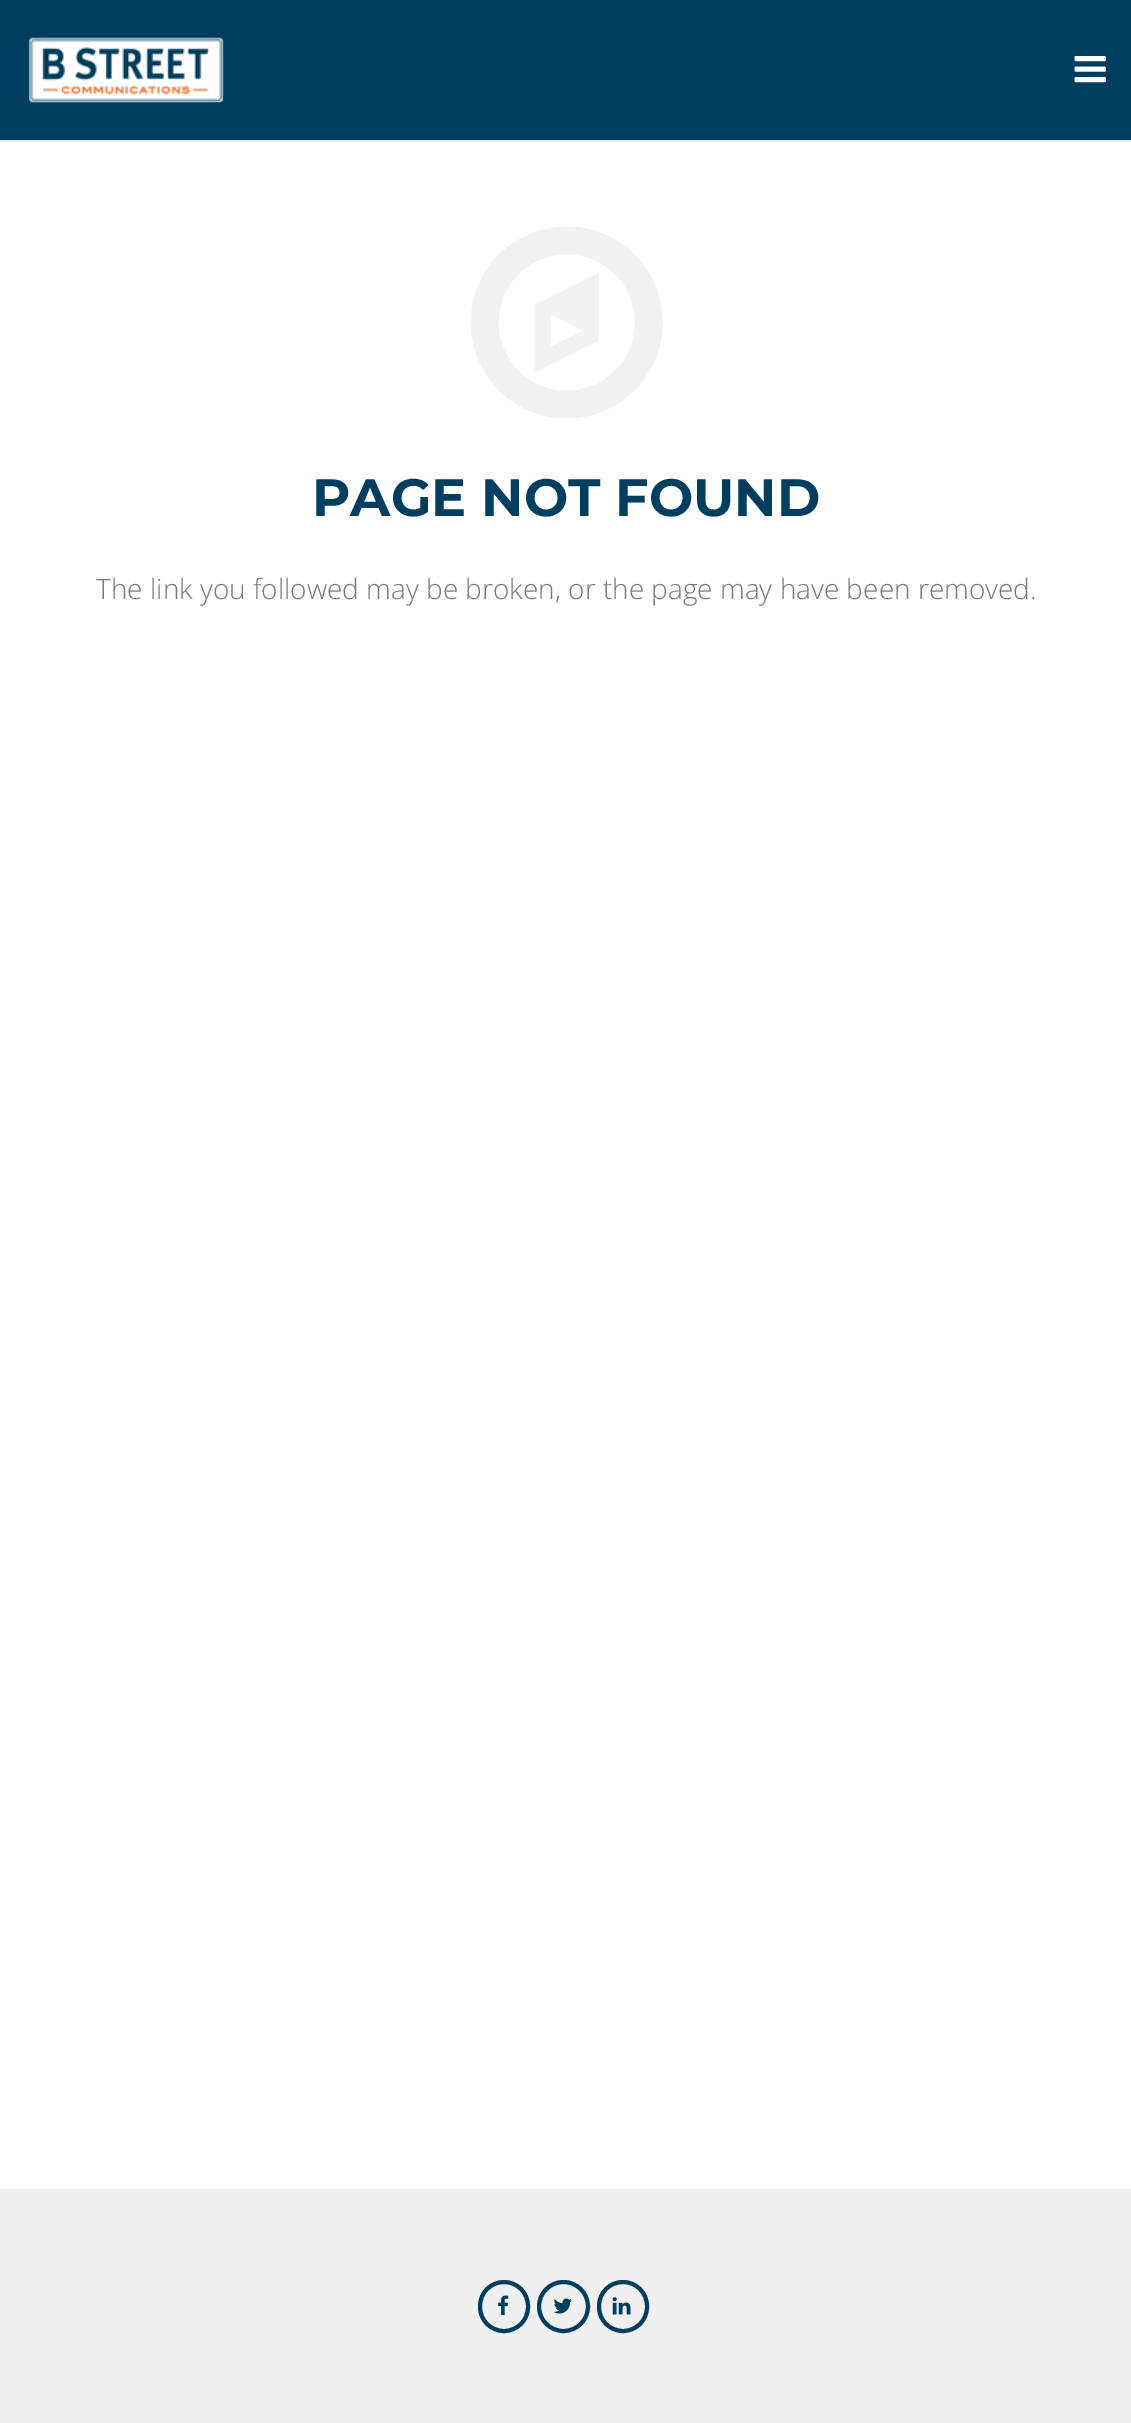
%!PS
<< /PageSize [1131 2423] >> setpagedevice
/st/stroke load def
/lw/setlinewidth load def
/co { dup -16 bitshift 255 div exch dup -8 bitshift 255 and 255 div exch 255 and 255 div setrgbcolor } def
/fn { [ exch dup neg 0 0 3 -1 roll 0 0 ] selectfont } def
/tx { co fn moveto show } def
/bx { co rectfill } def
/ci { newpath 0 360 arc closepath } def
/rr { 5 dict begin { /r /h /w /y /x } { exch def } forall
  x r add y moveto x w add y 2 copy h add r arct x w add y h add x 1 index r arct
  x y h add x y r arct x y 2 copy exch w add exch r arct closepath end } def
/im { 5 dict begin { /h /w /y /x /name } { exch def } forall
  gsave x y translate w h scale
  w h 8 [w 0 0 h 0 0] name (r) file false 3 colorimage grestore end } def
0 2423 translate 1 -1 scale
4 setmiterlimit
0 0 1131 2423 16#FFFFFF bx
0 140 1131 2 16#EBEBEB bx
0 0 1131 140 16#003E60 bx
(media/1.raw) 27 36 198 68 im
(media/2.raw) 1074 56 32 27 im
(media/3.raw) 471 226 192 193 im
0 2189 1131 234 16#F0F0F0 bx
16#003E60 co
4 lw
480 2282 48 49 24 rr st
(media/4.raw) 498 2295 11 20 im
563.5 2306.5 24.5 ci st
(media/5.raw) 553 2298 19 16 im
599 2282 48 49 24 rr st
(media/6.raw) 612 2297 19 18 im
(PAGE NOT FOUND) 312 516 /Montserrat-Bold 52.5 16#003E60 tx
(The link you followed may be broken, or the page may have been removed.) 96 599 /OpenSans-Light 28 16#7A7A7A tx
showpage
